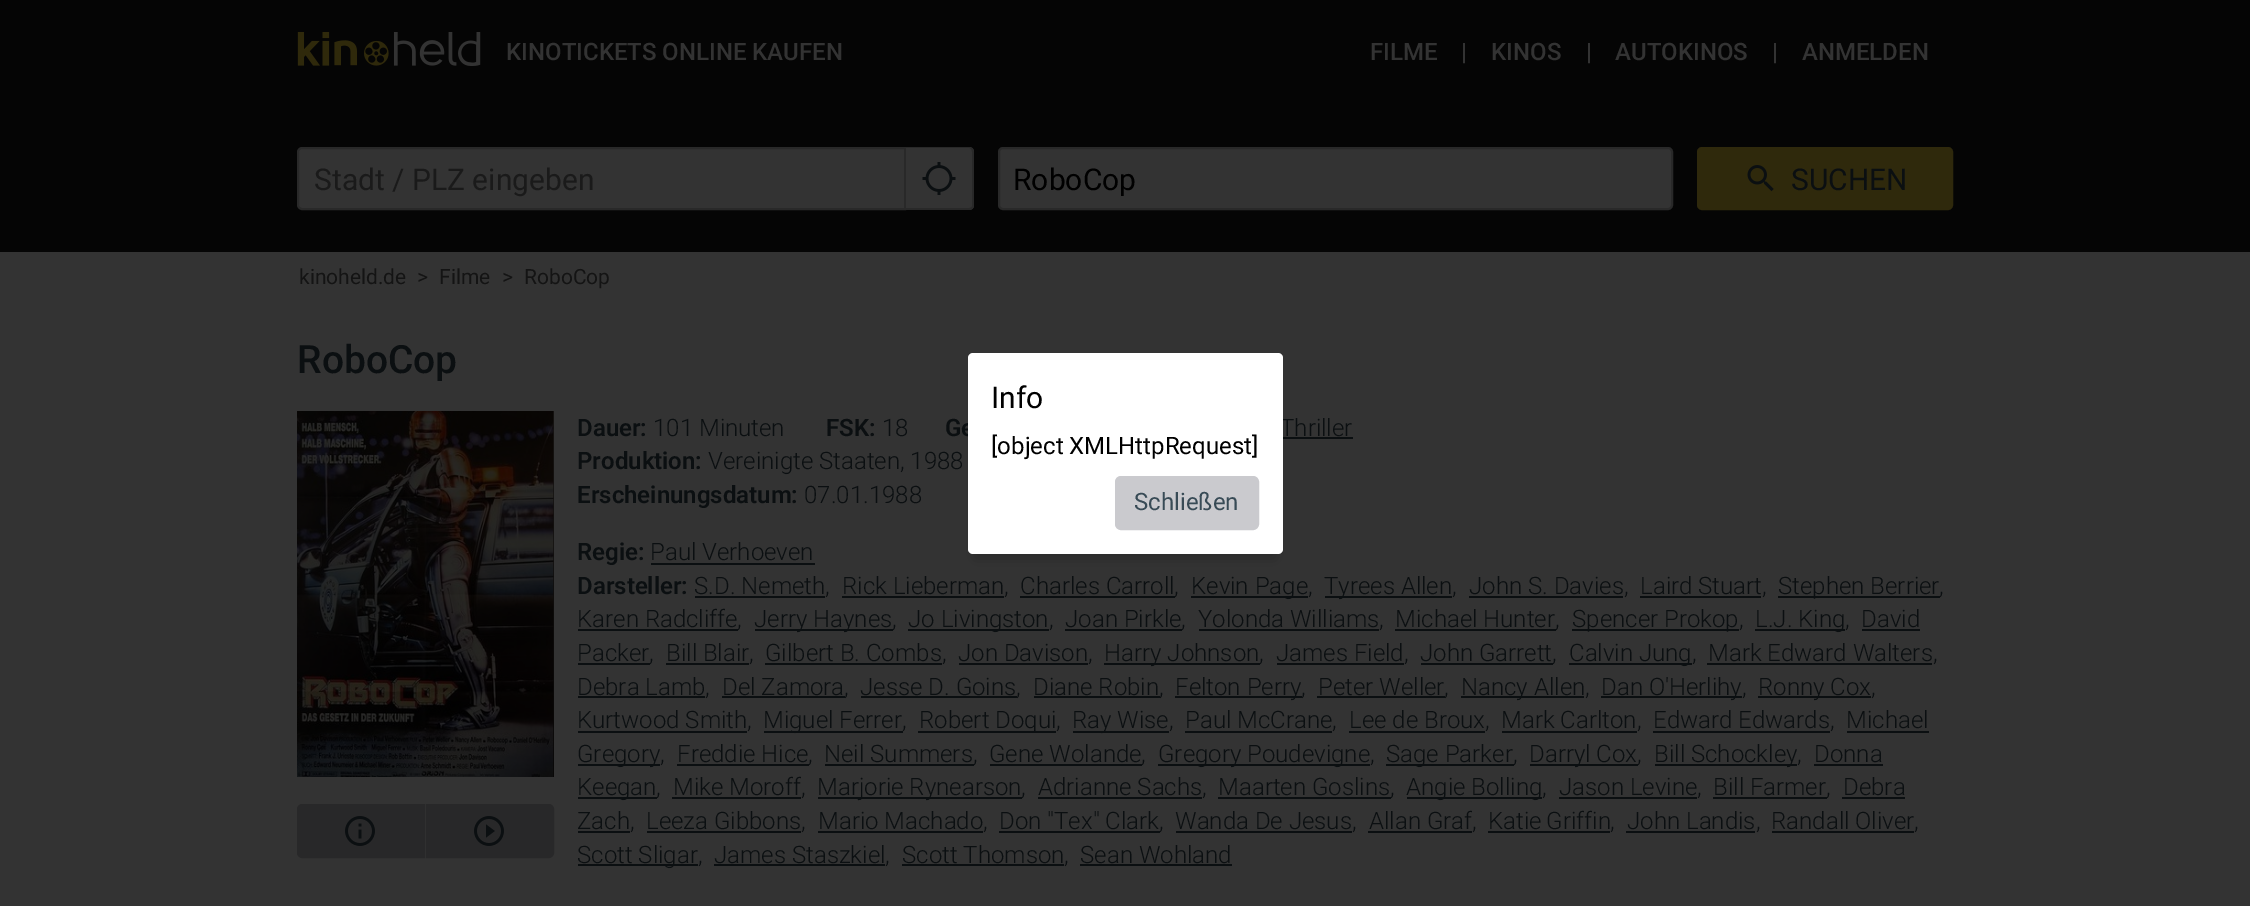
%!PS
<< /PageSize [2250 906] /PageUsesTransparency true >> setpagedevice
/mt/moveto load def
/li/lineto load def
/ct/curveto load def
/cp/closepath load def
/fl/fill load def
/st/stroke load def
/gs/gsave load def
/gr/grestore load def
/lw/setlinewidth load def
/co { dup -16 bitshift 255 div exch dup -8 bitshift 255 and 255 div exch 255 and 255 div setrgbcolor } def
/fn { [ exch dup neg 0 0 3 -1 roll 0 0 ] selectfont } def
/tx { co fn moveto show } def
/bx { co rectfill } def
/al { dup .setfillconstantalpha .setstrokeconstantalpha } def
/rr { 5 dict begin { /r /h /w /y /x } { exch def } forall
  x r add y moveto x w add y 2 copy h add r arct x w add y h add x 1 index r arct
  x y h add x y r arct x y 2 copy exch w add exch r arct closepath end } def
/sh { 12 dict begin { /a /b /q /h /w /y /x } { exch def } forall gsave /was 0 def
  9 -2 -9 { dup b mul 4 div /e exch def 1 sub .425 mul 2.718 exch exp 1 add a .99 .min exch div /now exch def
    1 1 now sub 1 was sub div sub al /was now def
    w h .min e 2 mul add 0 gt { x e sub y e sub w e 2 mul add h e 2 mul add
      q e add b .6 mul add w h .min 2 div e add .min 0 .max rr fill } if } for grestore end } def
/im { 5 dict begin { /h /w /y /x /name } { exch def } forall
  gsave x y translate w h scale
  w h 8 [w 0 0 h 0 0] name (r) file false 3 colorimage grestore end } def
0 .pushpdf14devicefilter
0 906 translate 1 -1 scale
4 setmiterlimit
0 0 2250 906 16#333333 bx
0 0 2250 252 16#050505 bx
(media/1.raw) 297 32 184 34 im
16#333333 co
302 148 mt 905 148 li 905 209 li 302 209 li 300 209 298 207 298 205 ct 298 152 li 298 150 300 148 302 148 ct cp gs fl gr
16#292929 co
2 lw
st
16#333333 co
906 147 mt 969 147 li 972 147 974 149 974 152 ct 974 205 li 974 208 972 210 969 210 ct 906 210 li cp fl
16#292929 co
906 147 mt 969 147 li 971 147 974 149 974 152 ct 974 206 li 974 208 971 210 969 210 ct 906 210 li cp 906 148 mt 969 148 li 971 148 972 150 972 152 ct 972 206 li 972 207 971 208 969 208 ct 906 208 li cp eofill
(media/2.raw) 922 162 34 33 im
16#333333 co
999 148 673 61 4 rr gs fl gr
16#292929 co
st
16#2F290C co
1698 148 254 61 4 rr gs fl gr
st
(media/3.raw) 1747 165 27 27 im
gs 553 411 mt 554 411 li 554 777 li 553 777 li cp clip newpath
<< /ShadingType 2 /ColorSpace /DeviceRGB /Coords [270 438 581 750] /Extend [true true] /Function << /FunctionType 2 /Domain [0 1] /C0 [.141 .129 .122] /C1 [.027 .02 .02] /N 1 >> >> shfill gr
(media/4.raw) 297 411 257 366 im
16#282829 co
302 805 mt 424 805 li 424 857 li 302 857 li 300 857 298 855 298 853 ct 298 809 li 298 807 300 805 302 805 ct cp gs fl gr
st
(media/5.raw) 345 816 30 30 im
427 805 mt 549 805 li 551 805 553 807 553 809 ct 553 853 li 553 855 551 857 549 857 ct 427 857 li cp gs fl gr
st
(media/6.raw) 474 816 30 30 im
1281 437 72 2 16#0B0F11 bx
651 563 164 2 16#0B0F11 bx
695 596 130 2 16#0B0F11 bx
842 596 162 2 16#0B0F11 bx
1020 596 155 2 16#0B0F11 bx
1191 596 117 2 16#0B0F11 bx
1325 596 127 2 16#0B0F11 bx
1469 596 154 2 16#0B0F11 bx
1640 596 121 2 16#0B0F11 bx
1778 596 162 2 16#0B0F11 bx
578 629 160 2 16#0B0F11 bx
755 629 138 2 16#0B0F11 bx
908 629 141 2 16#0B0F11 bx
1065 629 117 2 16#0B0F11 bx
1199 629 180 2 16#0B0F11 bx
1395 629 161 2 16#0B0F11 bx
1572 629 167 2 16#0B0F11 bx
1755 629 90 2 16#0B0F11 bx
1862 629 58 2 16#0B0F11 bx
578 663 72 2 16#0B0F11 bx
666 663 83 2 16#0B0F11 bx
765 663 177 2 16#0B0F11 bx
959 663 129 2 16#0B0F11 bx
1104 663 156 2 16#0B0F11 bx
1277 663 127 2 16#0B0F11 bx
1421 663 132 2 16#0B0F11 bx
1569 663 123 2 16#0B0F11 bx
1707 663 225 2 16#0B0F11 bx
578 696 127 2 16#0B0F11 bx
722 696 123 2 16#0B0F11 bx
861 696 156 2 16#0B0F11 bx
1034 696 126 2 16#0B0F11 bx
1175 696 127 2 16#0B0F11 bx
1317 696 128 2 16#0B0F11 bx
1461 696 123 2 16#0B0F11 bx
1601 696 141 2 16#0B0F11 bx
1758 696 113 2 16#0B0F11 bx
578 731 169 2 16#0B0F11 bx
764 731 139 2 16#0B0F11 bx
918 731 138 2 16#0B0F11 bx
1073 731 96 2 16#0B0F11 bx
1185 731 147 2 16#0B0F11 bx
1349 731 136 2 16#0B0F11 bx
1502 731 135 2 16#0B0F11 bx
1653 731 177 2 16#0B0F11 bx
1847 731 82 2 16#0B0F11 bx
578 764 82 2 16#0B0F11 bx
677 764 132 2 16#0B0F11 bx
825 764 149 2 16#0B0F11 bx
990 764 152 2 16#0B0F11 bx
1158 764 212 2 16#0B0F11 bx
1386 764 128 2 16#0B0F11 bx
1530 764 108 2 16#0B0F11 bx
1655 764 142 2 16#0B0F11 bx
1814 764 69 2 16#0B0F11 bx
578 797 79 2 16#0B0F11 bx
672 797 129 2 16#0B0F11 bx
818 797 204 2 16#0B0F11 bx
1038 797 164 2 16#0B0F11 bx
1218 797 173 2 16#0B0F11 bx
1407 797 135 2 16#0B0F11 bx
1559 797 138 2 16#0B0F11 bx
1713 797 114 2 16#0B0F11 bx
1842 797 63 2 16#0B0F11 bx
578 831 52 2 16#0B0F11 bx
647 831 154 2 16#0B0F11 bx
818 831 165 2 16#0B0F11 bx
999 831 161 2 16#0B0F11 bx
1176 831 176 2 16#0B0F11 bx
1368 831 104 2 16#0B0F11 bx
1488 831 122 2 16#0B0F11 bx
1626 831 129 2 16#0B0F11 bx
1772 831 142 2 16#0B0F11 bx
578 864 120 2 16#0B0F11 bx
714 864 171 2 16#0B0F11 bx
902 864 162 2 16#0B0F11 bx
1080 864 152 2 16#0B0F11 bx
16#000000 co
975 372 300 186 0 7 .2 sh
(KINOTICKETS ONLINE KAUFEN) 506 60 /Roboto-Medium 24 16#333333 tx
(FILME) 1370 60 /Roboto-Medium 24 16#333333 tx
(|) 1461 60 /Roboto-Medium 24 16#333333 tx
(KINOS) 1491 60 /Roboto-Medium 24 16#333333 tx
(|) 1586 60 /Roboto-Medium 24 16#333333 tx
(AUTOKINOS) 1615 60 /Roboto-Medium 24 16#333333 tx
(|) 1772 60 /Roboto-Medium 24 16#333333 tx
(ANMELDEN) 1802 60 /Roboto-Medium 24 16#333333 tx
(Stadt / PLZ eingeben) 314 190 /Roboto-Regular 30 16#1A1A1A tx
(RoboCop) 1013 190 /Roboto-Regular 30 16#000000 tx
(SUCHEN) 1791 190 /Roboto-Regular 30 16#0B0F11 tx
(kinoheld.de) 299 284 /Roboto-Regular 21 16#141414 tx
(>) 417 284 /Roboto-Regular 21 16#141414 tx
(Filme) 439 284 /Roboto-Regular 21 16#141414 tx
(>) 502 284 /Roboto-Regular 21 16#141414 tx
(RoboCop) 524 284 /Roboto-Regular 21 16#141414 tx
(RoboCop) 297 373 /Roboto-Medium 39 16#0B0F11 tx
(Dauer:) 577 436 /Roboto-SemiBold 24 16#0B0F11 tx
(101 Minuten) 653 436 /Roboto-Light 24 16#0B0F11 tx
(FSK:) 826 436 /Roboto-SemiBold 24 16#0B0F11 tx
(18) 882 436 /Roboto-Light 24 16#0B0F11 tx
(Ge) 945 436 /Roboto-SemiBold 24 16#0B0F11 tx
(Thriller) 1280 436 /Roboto-Light 24 16#0B0F11 tx
(Produktion:) 577 469 /Roboto-SemiBold 24 16#0B0F11 tx
(Vereinigte Staaten, 1988) 708 469 /Roboto-Light 24 16#0B0F11 tx
(Erscheinungsdatum:) 577 503 /Roboto-SemiBold 24 16#0B0F11 tx
(07.01.1988) 804 503 /Roboto-Light 24 16#0B0F11 tx
(Regie:) 577 560 /Roboto-SemiBold 24 16#0B0F11 tx
(Paul Verhoeven) 650 560 /Roboto-Light 24 16#0B0F11 tx
(Darsteller:) 577 594 /Roboto-SemiBold 24 16#0B0F11 tx
(S.D. Nemeth,) 694 594 /Roboto-Light 24 16#0B0F11 tx
(Rick Lieberman,) 842 594 /Roboto-Light 24 16#0B0F11 tx
(Charles Carroll,) 1020 594 /Roboto-Light 24 16#0B0F11 tx
(Kevin Page,) 1191 594 /Roboto-Light 24 16#0B0F11 tx
(Tyrees Allen,) 1324 594 /Roboto-Light 24 16#0B0F11 tx
(John S. Davies,) 1469 594 /Roboto-Light 24 16#0B0F11 tx
(Laird Stuart,) 1640 594 /Roboto-Light 24 16#0B0F11 tx
(Stephen Berrier,) 1778 594 /Roboto-Light 24 16#0B0F11 tx
(Karen Radcliffe,) 577 627 /Roboto-Light 24 16#0B0F11 tx
(Jerry Haynes,) 754 627 /Roboto-Light 24 16#0B0F11 tx
(Jo Livingston,) 908 627 /Roboto-Light 24 16#0B0F11 tx
(Joan Pirkle,) 1065 627 /Roboto-Light 24 16#0B0F11 tx
(Yolonda Williams,) 1198 627 /Roboto-Light 24 16#0B0F11 tx
(Michael Hunter,) 1395 627 /Roboto-Light 24 16#0B0F11 tx
(Spencer Prokop,) 1572 627 /Roboto-Light 24 16#0B0F11 tx
(L.J. King,) 1755 627 /Roboto-Light 24 16#0B0F11 tx
(David) 1861 627 /Roboto-Light 24 16#0B0F11 tx
(Packer,) 577 661 /Roboto-Light 24 16#0B0F11 tx
(Bill Blair,) 666 661 /Roboto-Light 24 16#0B0F11 tx
(Gilbert B. Combs,) 765 661 /Roboto-Light 24 16#0B0F11 tx
(Jon Davison,) 958 661 /Roboto-Light 24 16#0B0F11 tx
(Harry Johnson,) 1104 661 /Roboto-Light 24 16#0B0F11 tx
(James Field,) 1276 661 /Roboto-Light 24 16#0B0F11 tx
(John Garrett,) 1420 661 /Roboto-Light 24 16#0B0F11 tx
(Calvin Jung,) 1569 661 /Roboto-Light 24 16#0B0F11 tx
(Mark Edward Walters,) 1708 661 /Roboto-Light 24 16#0B0F11 tx
(Debra Lamb,) 577 695 /Roboto-Light 24 16#0B0F11 tx
(Del Zamora,) 722 695 /Roboto-Light 24 16#0B0F11 tx
(Jesse D. Goins,) 860 695 /Roboto-Light 24 16#0B0F11 tx
(Diane Robin,) 1033 695 /Roboto-Light 24 16#0B0F11 tx
(Felton Perry,) 1175 695 /Roboto-Light 24 16#0B0F11 tx
(Peter Weller,) 1318 695 /Roboto-Light 24 16#0B0F11 tx
(Nancy Allen,) 1461 695 /Roboto-Light 24 16#0B0F11 tx
(Dan O'Herlihy,) 1601 695 /Roboto-Light 24 16#0B0F11 tx
(Ronny Cox,) 1758 695 /Roboto-Light 24 16#0B0F11 tx
(Kurtwood Smith,) 577 728 /Roboto-Light 24 16#0B0F11 tx
(Miguel Ferrer,) 763 728 /Roboto-Light 24 16#0B0F11 tx
(Robert Doqui,) 919 728 /Roboto-Light 24 16#0B0F11 tx
(Ray Wise,) 1072 728 /Roboto-Light 24 16#0B0F11 tx
(Paul McCrane,) 1185 728 /Roboto-Light 24 16#0B0F11 tx
(Lee de Broux,) 1349 728 /Roboto-Light 24 16#0B0F11 tx
(Mark Carlton,) 1501 728 /Roboto-Light 24 16#0B0F11 tx
(Edward Edwards,) 1653 728 /Roboto-Light 24 16#0B0F11 tx
(Michael) 1846 728 /Roboto-Light 24 16#0B0F11 tx
(Gregory,) 577 762 /Roboto-Light 24 16#0B0F11 tx
(Freddie Hice,) 677 762 /Roboto-Light 24 16#0B0F11 tx
(Neil Summers,) 824 762 /Roboto-Light 24 16#0B0F11 tx
(Gene Wolande,) 989 762 /Roboto-Light 24 16#0B0F11 tx
(Gregory Poudevigne,) 1158 762 /Roboto-Light 24 16#0B0F11 tx
(Sage Parker,) 1386 762 /Roboto-Light 24 16#0B0F11 tx
(Darryl Cox,) 1529 762 /Roboto-Light 24 16#0B0F11 tx
(Bill Schockley,) 1654 762 /Roboto-Light 24 16#0B0F11 tx
(Donna) 1814 762 /Roboto-Light 24 16#0B0F11 tx
(Keegan,) 577 795 /Roboto-Light 24 16#0B0F11 tx
(Mike Moroff,) 673 795 /Roboto-Light 24 16#0B0F11 tx
(Marjorie Rynearson,) 817 795 /Roboto-Light 24 16#0B0F11 tx
(Adrianne Sachs,) 1038 795 /Roboto-Light 24 16#0B0F11 tx
(Maarten Goslins,) 1218 795 /Roboto-Light 24 16#0B0F11 tx
(Angie Bolling,) 1406 795 /Roboto-Light 24 16#0B0F11 tx
(Jason Levine,) 1559 795 /Roboto-Light 24 16#0B0F11 tx
(Bill Farmer,) 1713 795 /Roboto-Light 24 16#0B0F11 tx
(Debra) 1843 795 /Roboto-Light 24 16#0B0F11 tx
(Zach,) 577 829 /Roboto-Light 24 16#0B0F11 tx
(Leeza Gibbons,) 646 829 /Roboto-Light 24 16#0B0F11 tx
(Mario Machado,) 818 829 /Roboto-Light 24 16#0B0F11 tx
(Don "Tex" Clark,) 999 829 /Roboto-Light 24 16#0B0F11 tx
(Wanda De Jesus,) 1175 829 /Roboto-Light 24 16#0B0F11 tx
(Allan Graf,) 1369 829 /Roboto-Light 24 16#0B0F11 tx
1488 829 mt -1 0 32 (Katie Griffin) widthshow
(,) 1610 829 /Roboto-Light 24 16#0B0F11 tx
(John Landis,) 1627 829 /Roboto-Light 24 16#0B0F11 tx
(Randall Oliver,) 1771 829 /Roboto-Light 24 16#0B0F11 tx
(Scott Sligar,) 577 863 /Roboto-Light 24 16#0B0F11 tx
(James Staszkiel,) 714 863 /Roboto-Light 24 16#0B0F11 tx
(Scott Thomson,) 902 863 /Roboto-Light 24 16#0B0F11 tx
(Sean Wohland) 1080 863 /Roboto-Light 24 16#0B0F11 tx
16#FFFFFF co
968 353 315 201 5 rr fl
(Info) 991 408 /Roboto-Regular 30 16#000000 tx
([object XMLHttpRequest]) 991 454 /Roboto-Regular 24 16#000000 tx
16#CACACE co
1116 477 142 52 5 rr gs fl gr
st
(Schließen) 1134 510 /Roboto-Regular 24 16#384B56 tx
.poppdf14devicefilter showpage
